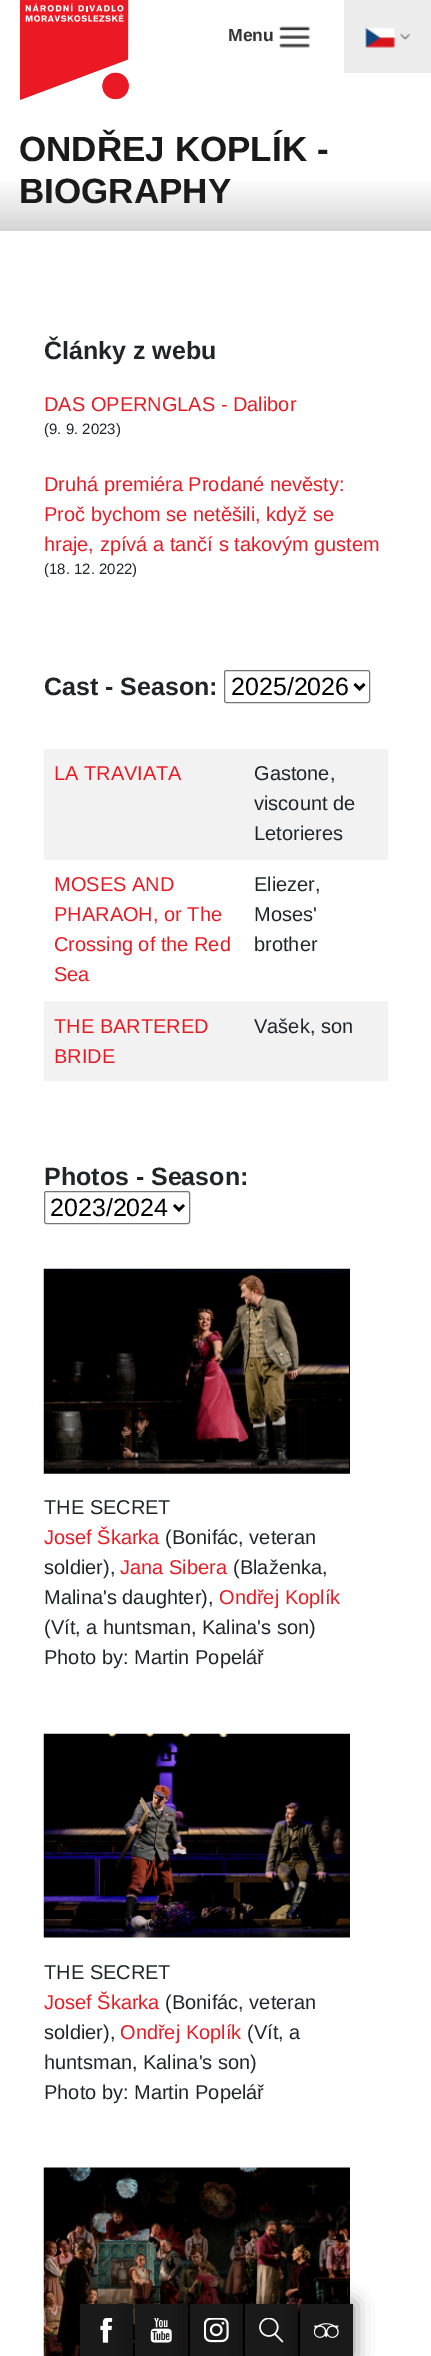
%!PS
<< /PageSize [431 2356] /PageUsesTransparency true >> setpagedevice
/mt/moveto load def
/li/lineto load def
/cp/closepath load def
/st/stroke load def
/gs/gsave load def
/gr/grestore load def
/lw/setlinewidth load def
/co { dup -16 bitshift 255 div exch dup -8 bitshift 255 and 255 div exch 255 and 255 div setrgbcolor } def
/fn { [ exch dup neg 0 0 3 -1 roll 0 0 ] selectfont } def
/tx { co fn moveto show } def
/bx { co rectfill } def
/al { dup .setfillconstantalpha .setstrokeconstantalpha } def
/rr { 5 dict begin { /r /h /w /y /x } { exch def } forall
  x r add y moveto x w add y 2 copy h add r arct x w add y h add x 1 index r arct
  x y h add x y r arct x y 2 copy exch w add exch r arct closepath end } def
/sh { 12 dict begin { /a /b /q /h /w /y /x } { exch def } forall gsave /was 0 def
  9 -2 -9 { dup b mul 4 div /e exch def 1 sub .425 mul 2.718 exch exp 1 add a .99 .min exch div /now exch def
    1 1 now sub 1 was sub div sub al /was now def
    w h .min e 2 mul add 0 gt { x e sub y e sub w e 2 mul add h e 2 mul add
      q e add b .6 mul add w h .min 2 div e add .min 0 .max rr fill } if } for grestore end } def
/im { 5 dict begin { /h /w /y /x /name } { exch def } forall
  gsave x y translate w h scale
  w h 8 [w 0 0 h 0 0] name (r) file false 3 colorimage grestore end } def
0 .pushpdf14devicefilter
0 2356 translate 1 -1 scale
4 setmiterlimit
0 0 431 2356 16#FFFFFF bx
(media/1.raw) 20 0 109 100 im
(media/2.raw) 20 0 109 100 im
(media/3.raw) 278 26 32 22 im
344 0 87 73 16#ECECEC bx
(media/4.raw) 365 27 30 21 im
(media/5.raw) 400 33 10 7 im
gs 0 180 mt 431 180 li 431 231 li 0 231 li cp clip newpath
<< /ShadingType 2 /ColorSpace /DeviceRGB /Coords [216 72 216 231] /Extend [true true] /Function << /FunctionType 3 /Domain [0 1] /Functions [<< /FunctionType 2 /Domain [0 1] /C0 [1 1 1] /C1 [1 1 1] /N 1 >> << /FunctionType 2 /Domain [0 1] /C0 [1 1 1] /C1 [.835 .835 .835] /N 1 >>] /Bounds [.66] /Encode [0 1 0 1] >> >> shfill gr
16#767676 co
224.5 670.5 145 32 2 rr st
16#000000 co
2.5 lw
354.5 684 mt 359.5 689 li 364.5 684 li st
44 749 344 111 16#F2F2F2 bx
44 1001 344 80 16#F2F2F2 bx
16#767676 co
1 lw
44.5 1191.5 145 32 2 rr st
16#000000 co
2.5 lw
174 1205 mt 179 1210 li 184 1205 li st
(media/6.raw) 43 1268 307 206 im
(media/7.raw) 43 1733 307 205 im
(media/8.raw) 43 2167 307 189 im
190 2194 53 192 0 10 .5 sh
80 2304 53 52 0 10 .5 sh
80 2304 53 52 16#1A1A1A bx
(media/9.raw) 100 2318 13 25 im
16#000000 co
135 2304 53 52 0 10 .5 sh
135 2304 53 52 16#1A1A1A bx
(media/10.raw) 150 2318 22 25 im
16#000000 co
190 2304 53 52 0 10 .5 sh
190 2304 53 52 16#1A1A1A bx
(media/11.raw) 204 2318 25 25 im
16#000000 co
245 2304 53 52 0 10 .5 sh
245 2304 53 52 16#1A1A1A bx
(media/12.raw) 259 2318 25 25 im
16#000000 co
300 2304 53 52 0 10 .5 sh
300 2304 53 52 16#1A1A1A bx
(media/13.raw) 314 2323 25 15 im
(Menu) 228 41 /LiberationSans-Bold 17.5 16#333333 tx
(ONDŘEJ KOPLÍK -) 19 161 /LiberationSans-Bold 35 16#1A1A1A tx
(BIOGRAPHY) 19 203 /LiberationSans-Bold 35 16#1A1A1A tx
(Články z webu) 44 359 /LiberationSans-Bold 25 16#212529 tx
(DAS OPERNGLAS - Dalibor) 44 411 /LiberationSans-Regular 20 16#E61C24 tx
(\(9. 9. 2023\)) 44 434 /LiberationSans-Regular 15 16#212529 tx
(Druhá premiéra Prodané nevěsty:) 44 491 /LiberationSans-Regular 20 16#E61C24 tx
(Proč bychom se netěšili, když se) 44 521 /LiberationSans-Regular 20 16#E61C24 tx
(hraje, zpívá a tančí s takovým gustem) 44 551 /LiberationSans-Regular 20 16#E61C24 tx
(\(18. 12. 2022\)) 44 574 /LiberationSans-Regular 15 16#212529 tx
(Cast - Season:) 44 695 /LiberationSans-Bold 25 16#212529 tx
(2025/2026) 231 695 /LiberationSans-Regular 25 16#000000 tx
(LA TRAVIATA) 54 780 /LiberationSans-Regular 20 16#E61C24 tx
(Gastone,) 254 780 /LiberationSans-Regular 20 16#212529 tx
(viscount de) 254 810 /LiberationSans-Regular 20 16#212529 tx
(Letorieres) 254 840 /LiberationSans-Regular 20 16#212529 tx
(MOSES AND) 54 891 /LiberationSans-Regular 20 16#E61C24 tx
(PHARAOH, or The) 54 921 /LiberationSans-Regular 20 16#E61C24 tx
(Crossing of the Red) 54 951 /LiberationSans-Regular 20 16#E61C24 tx
(Sea) 54 981 /LiberationSans-Regular 20 16#E61C24 tx
(Eliezer,) 254 891 /LiberationSans-Regular 20 16#212529 tx
(Moses') 254 921 /LiberationSans-Regular 20 16#212529 tx
(brother) 254 951 /LiberationSans-Regular 20 16#212529 tx
(THE BARTERED) 54 1033 /LiberationSans-Regular 20 16#E61C24 tx
(BRIDE) 54 1063 /LiberationSans-Regular 20 16#E61C24 tx
(Vašek, son) 254 1033 /LiberationSans-Regular 20 16#212529 tx
(Photos - Season:) 44 1185 /LiberationSans-Bold 25 16#212529 tx
(2023/2024) 50 1216 /LiberationSans-Regular 25 16#000000 tx
(THE SECRET) 44 1514 /LiberationSans-Regular 20 16#212529 tx
(Josef Škarka) 44 1544 /LiberationSans-Regular 20 16#E61C24 tx
(\(Bonifác, veteran) 165 1544 /LiberationSans-Regular 20 16#212529 tx
(soldier\),) 44 1574 /LiberationSans-Regular 20 16#212529 tx
(Jana Sibera) 120 1574 /LiberationSans-Regular 20 16#E61C24 tx
(\(Blaženka,) 233 1574 /LiberationSans-Regular 20 16#212529 tx
(Malina's daughter\),) 44 1604 /LiberationSans-Regular 20 16#212529 tx
(Ondřej Koplík) 219 1604 /LiberationSans-Regular 20 16#E61C24 tx
(\(Vít, a huntsman, Kalina's son\)) 44 1634 /LiberationSans-Regular 20 16#212529 tx
(Photo by: Martin Popelář) 44 1664 /LiberationSans-Regular 20 16#212529 tx
(THE SECRET) 44 1979 /LiberationSans-Regular 20 16#212529 tx
(Josef Škarka) 44 2009 /LiberationSans-Regular 20 16#E61C24 tx
(\(Bonifác, veteran) 165 2009 /LiberationSans-Regular 20 16#212529 tx
(soldier\),) 44 2039 /LiberationSans-Regular 20 16#212529 tx
(Ondřej Koplík) 120 2039 /LiberationSans-Regular 20 16#E61C24 tx
(\(Vít, a) 247 2039 /LiberationSans-Regular 20 16#212529 tx
(huntsman, Kalina's son\)) 44 2069 /LiberationSans-Regular 20 16#212529 tx
(Photo by: Martin Popelář) 44 2099 /LiberationSans-Regular 20 16#212529 tx
.poppdf14devicefilter showpage
